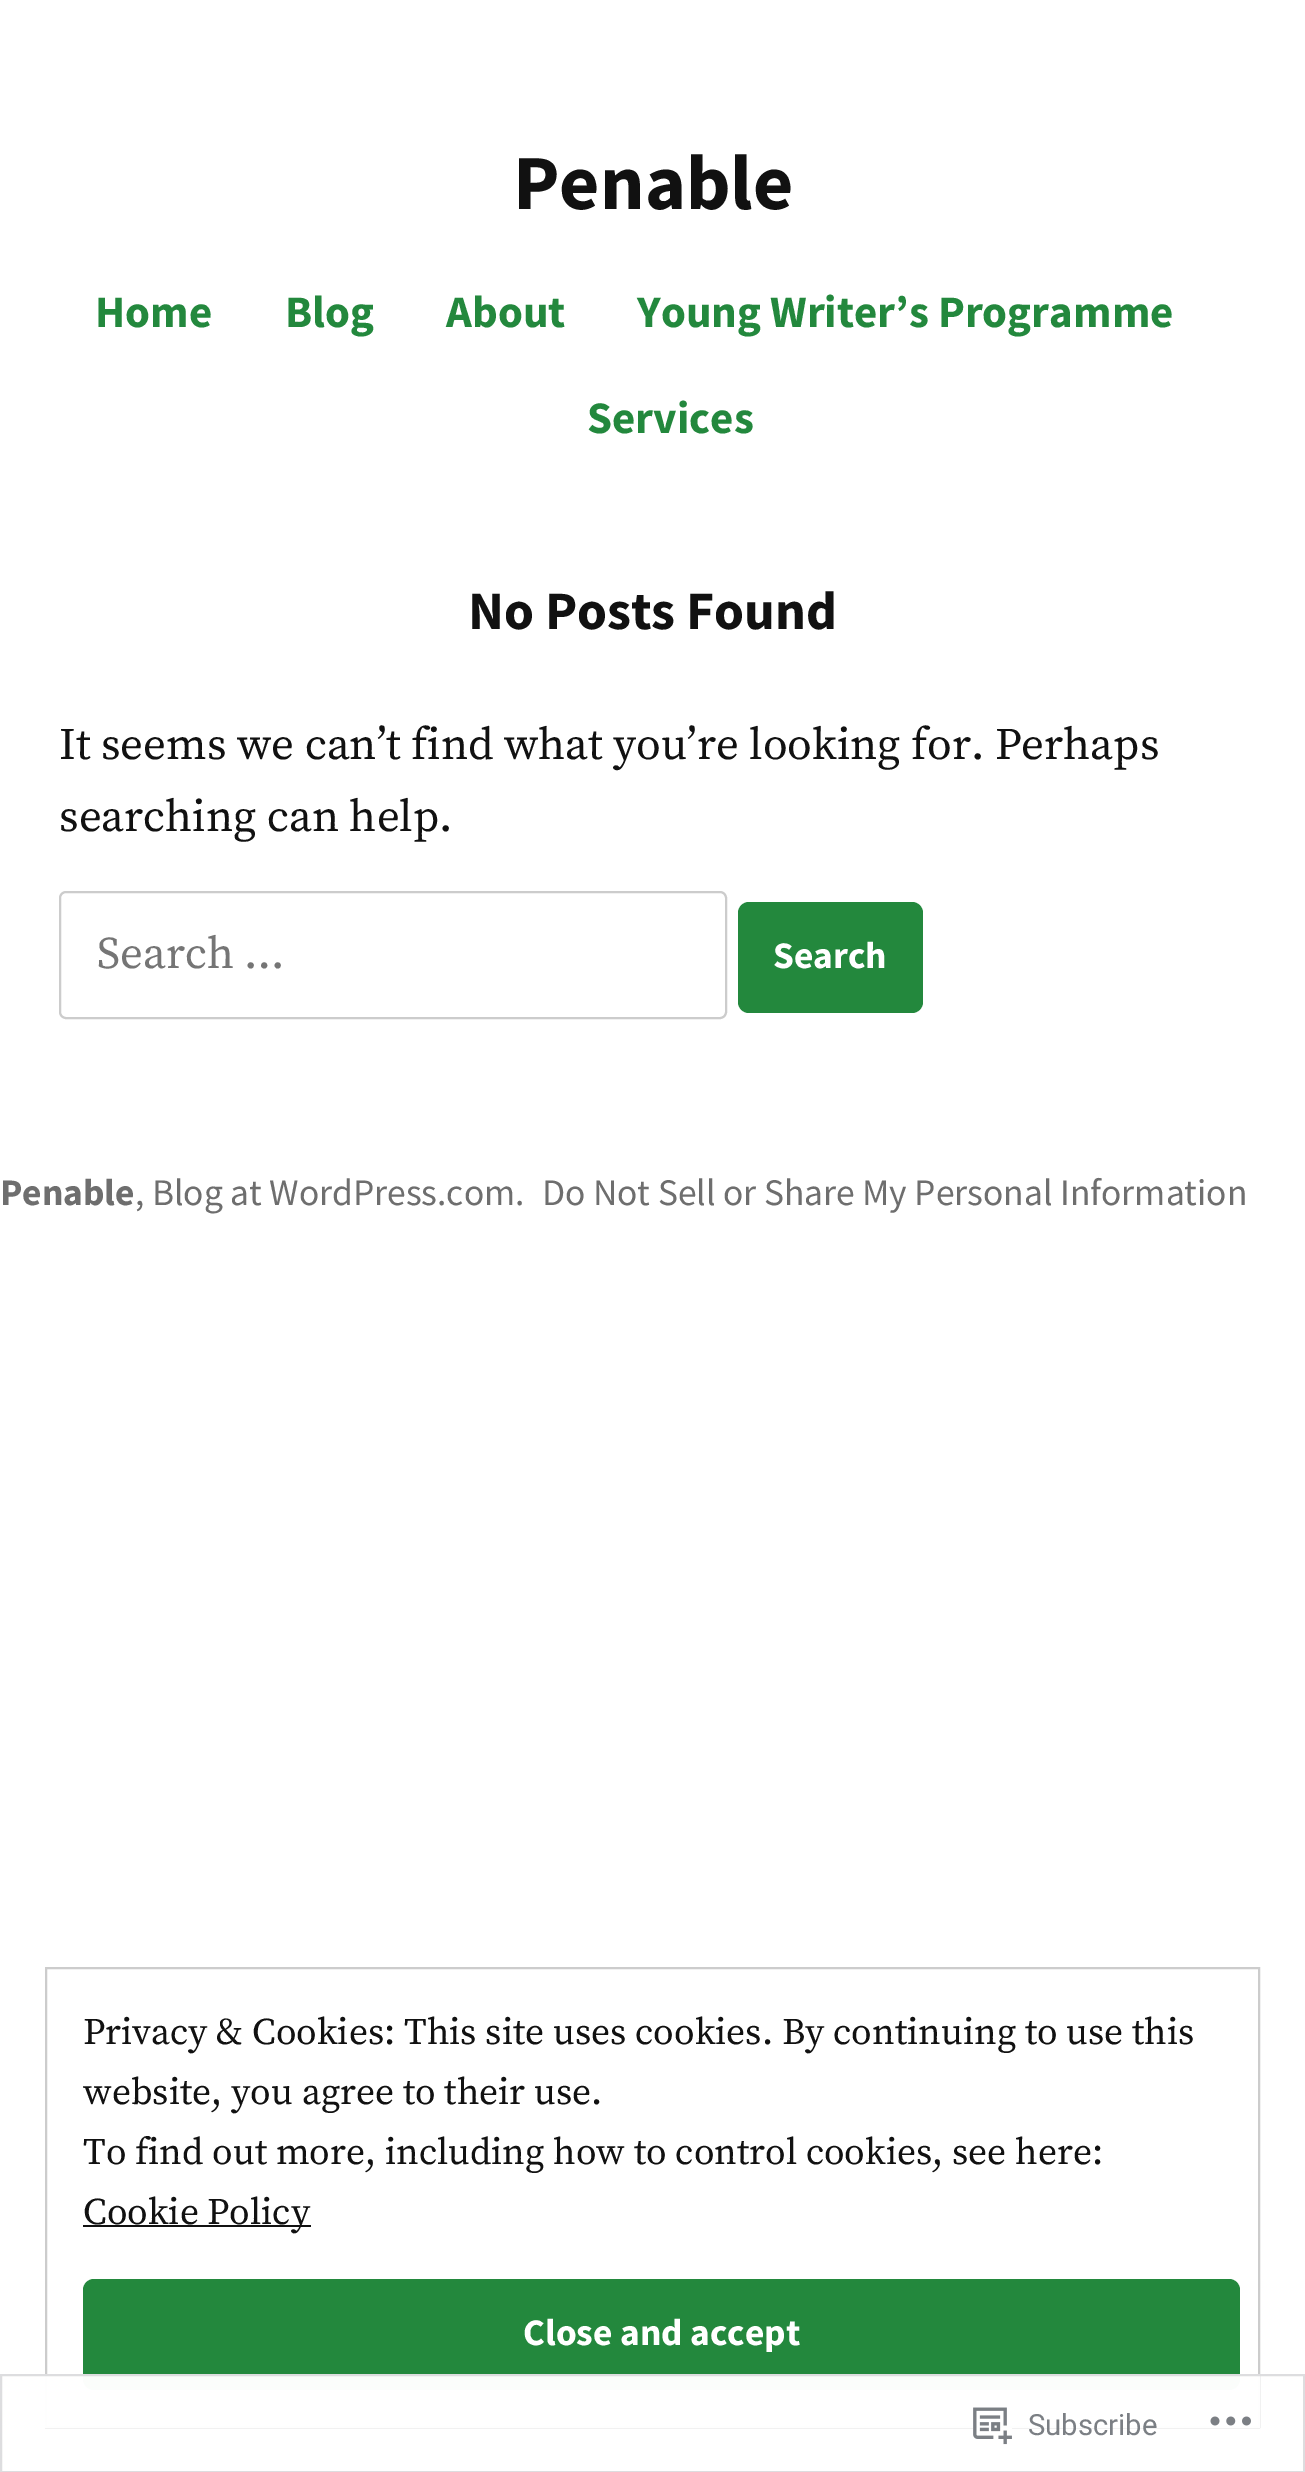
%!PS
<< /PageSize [1305 2472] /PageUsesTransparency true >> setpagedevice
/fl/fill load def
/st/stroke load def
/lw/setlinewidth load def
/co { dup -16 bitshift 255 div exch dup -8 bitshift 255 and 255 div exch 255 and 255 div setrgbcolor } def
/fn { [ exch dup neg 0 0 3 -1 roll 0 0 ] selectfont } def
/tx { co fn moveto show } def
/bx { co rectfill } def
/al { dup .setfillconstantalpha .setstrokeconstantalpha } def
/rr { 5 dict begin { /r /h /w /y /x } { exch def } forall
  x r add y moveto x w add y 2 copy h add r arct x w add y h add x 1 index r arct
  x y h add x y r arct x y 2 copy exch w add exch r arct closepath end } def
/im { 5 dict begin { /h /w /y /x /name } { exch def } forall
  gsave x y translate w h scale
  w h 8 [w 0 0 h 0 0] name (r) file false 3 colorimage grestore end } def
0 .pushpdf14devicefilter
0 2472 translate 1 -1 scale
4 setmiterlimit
0 0 1305 2472 16#FFFFFF bx
16#CCCCCC co
2 lw
60 892 666 126 6 rr st
16#23883D co
738 902 185 111 11 rr fl
16#CCCCCC co
46 1968 1213 459 rectstroke
83 2225 228 2 16#111111 bx
16#23883D co
83 2279 1157 111 11 rr fl
0.98 al
45 2374 1215 54 16#FFFFFF bx
16#DCDCDE co
1 2375 1303 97 rectstroke
1 al
(media/1.raw) 973 2407 39 38 im
(media/2.raw) 1210 2416 41 10 im
(Penable) 513 209 /SourceSansPro-Bold 78 16#111111 tx
(Home) 95 327 /SourceSansPro-Bold 45 16#23883D tx
(Blog) 285 327 /SourceSansPro-Bold 45 16#23883D tx
(About) 446 327 /SourceSansPro-Bold 45 16#23883D tx
(Young Writer’s Programme) 637 327 /SourceSansPro-Bold 45 16#23883D tx
(Services) 587 433 /SourceSansPro-Bold 45 16#23883D tx
(No Posts Found) 468 629 /SourceSansPro-Bold 54 16#111111 tx
(It seems we can’t find what you’re looking for. Perhaps) 59 759 /SourceSerifPro-Regular 45 16#111111 tx
(searching can help.) 59 831 /SourceSerifPro-Regular 45 16#111111 tx
(Search …) 97 968 /SourceSerifPro-Regular 45 16#757575 tx
(Search) 773 968 /SourceSansPro-Bold 37.5 16#FFFFFF tx
(Penable) 0 1205 /SourceSansPro-Bold 37.5 16#6E6E6E tx
(, Blog at WordPress.com.) 135 1205 /SourceSansPro-Regular 37.5 16#6E6E6E tx
(Do Not Sell or Share My Personal Information) 542 1205 /SourceSansPro-Regular 37.5 16#6E6E6E tx
(Privacy & Cookies: This site uses cookies. By continuing to use this) 83 2044 /SourceSerifPro-Regular 37.5 16#111111 tx
(website, you agree to their use.) 83 2104 /SourceSerifPro-Regular 37.5 16#111111 tx
(To find out more, including how to control cookies, see here:) 83 2164 /SourceSerifPro-Regular 37.5 16#111111 tx
(Cookie Policy) 83 2224 /SourceSerifPro-Regular 37.5 16#111111 tx
(Close and accept) 523 2345 /SourceSansPro-Bold 37.5 16#FFFFFF tx
(Subscribe) 1028 2435 /Roboto-Regular 29.25 16#7B7F84 tx
.poppdf14devicefilter showpage
